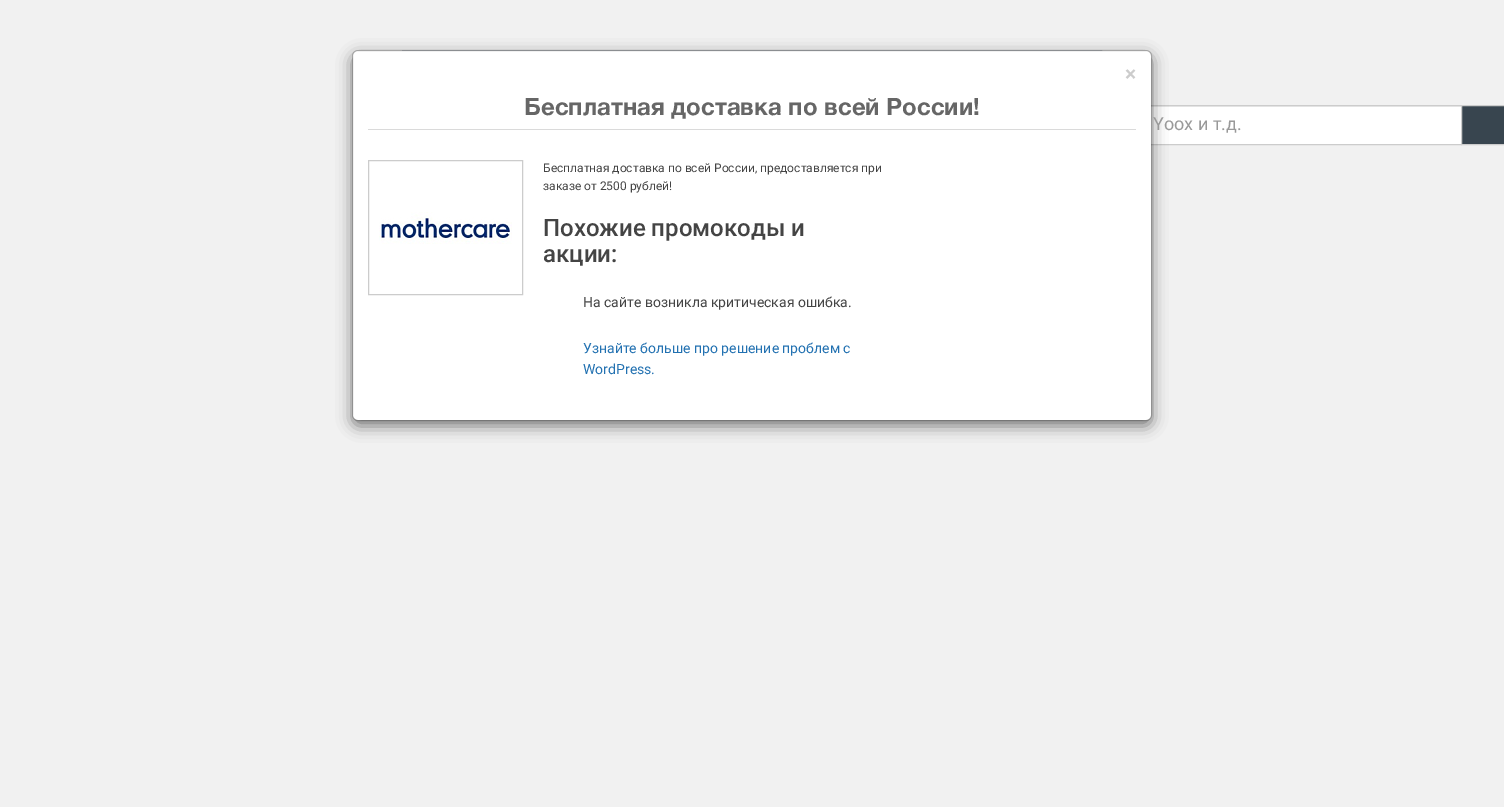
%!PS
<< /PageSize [1504 807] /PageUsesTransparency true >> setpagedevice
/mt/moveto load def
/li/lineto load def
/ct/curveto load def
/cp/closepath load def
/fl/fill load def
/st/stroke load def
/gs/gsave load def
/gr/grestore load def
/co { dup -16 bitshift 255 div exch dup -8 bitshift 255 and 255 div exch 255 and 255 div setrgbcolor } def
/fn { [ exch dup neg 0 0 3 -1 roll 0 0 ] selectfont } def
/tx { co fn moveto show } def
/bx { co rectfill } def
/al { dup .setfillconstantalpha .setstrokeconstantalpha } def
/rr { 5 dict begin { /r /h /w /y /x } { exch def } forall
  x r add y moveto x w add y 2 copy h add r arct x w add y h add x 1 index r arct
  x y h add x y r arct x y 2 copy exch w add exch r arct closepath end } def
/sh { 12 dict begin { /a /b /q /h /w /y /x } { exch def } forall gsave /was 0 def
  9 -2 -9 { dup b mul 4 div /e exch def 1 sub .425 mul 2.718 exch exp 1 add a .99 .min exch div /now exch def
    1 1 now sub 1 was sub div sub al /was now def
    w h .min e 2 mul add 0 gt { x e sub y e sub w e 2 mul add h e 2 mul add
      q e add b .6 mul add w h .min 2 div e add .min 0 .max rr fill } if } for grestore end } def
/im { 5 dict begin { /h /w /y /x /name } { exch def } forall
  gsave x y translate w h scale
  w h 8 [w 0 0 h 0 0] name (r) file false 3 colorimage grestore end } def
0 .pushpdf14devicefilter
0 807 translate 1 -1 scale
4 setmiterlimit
0 0 1504 807 16#F1F1F1 bx
16#CCD0D4 co
402.5 50.5 699 149 rectstroke
1151 107 310 37 16#FFFFFF bx
16#ECECEC co
1020 107 mt 1461 107 li 1461 106 li 1020 106 li 1018 106 1017 108 1017 110 ct 1017 108 1018 107 1020 107 ct cp fl
16#CCCCCC co
1016.5 105.5 445 39 rectstroke
16#000000 co
352 55 800 371 6 7.5 .5 sh
16#FFFFFF co
353 51 798 369 5 rr fl
0.2 al
16#000000 co
352.5 50.5 799 370 5.5 rr st
1 al
368 129 768 1 16#DADADA bx
16#CCCCCC co
368.5 160.5 154 134 rectstroke
(media/1.raw) 379 212 133 32 im
16#38454F co
1461.5 105.5 mt 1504.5 105.5 li 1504.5 144.5 li 1461.5 144.5 li cp gs fl gr
16#CCCCCC co
st
(×) 1125 81 /Roboto-Bold 21 16#CCCCCC tx
(Бесплатная доставка по всей России!) 524 115 /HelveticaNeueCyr-Bold 24 16#666666 tx
(Бесплатная доставка по всей России, предоставляется при) 543 172 /Roboto-Regular 12 16#444444 tx
(заказе от 2500 рублей!) 543 190 /Roboto-Regular 12 16#444444 tx
(Похожие промокоды и) 543 236 /Roboto-Medium 24 16#444444 tx
(акции:) 543 262 /Roboto-Medium 24 16#444444 tx
(На сайте возникла критическая ошибка.) 583 307 /Roboto-Regular 14 16#444444 tx
(Узнайте больше про решение проблем с) 583 353 /Roboto-Regular 14 16#2271B1 tx
(WordPress.) 583 374 /Roboto-Regular 14 16#2271B1 tx
(Yoox и т.д.) 1153 130 /Roboto-Regular 18 16#999999 tx
.poppdf14devicefilter showpage
